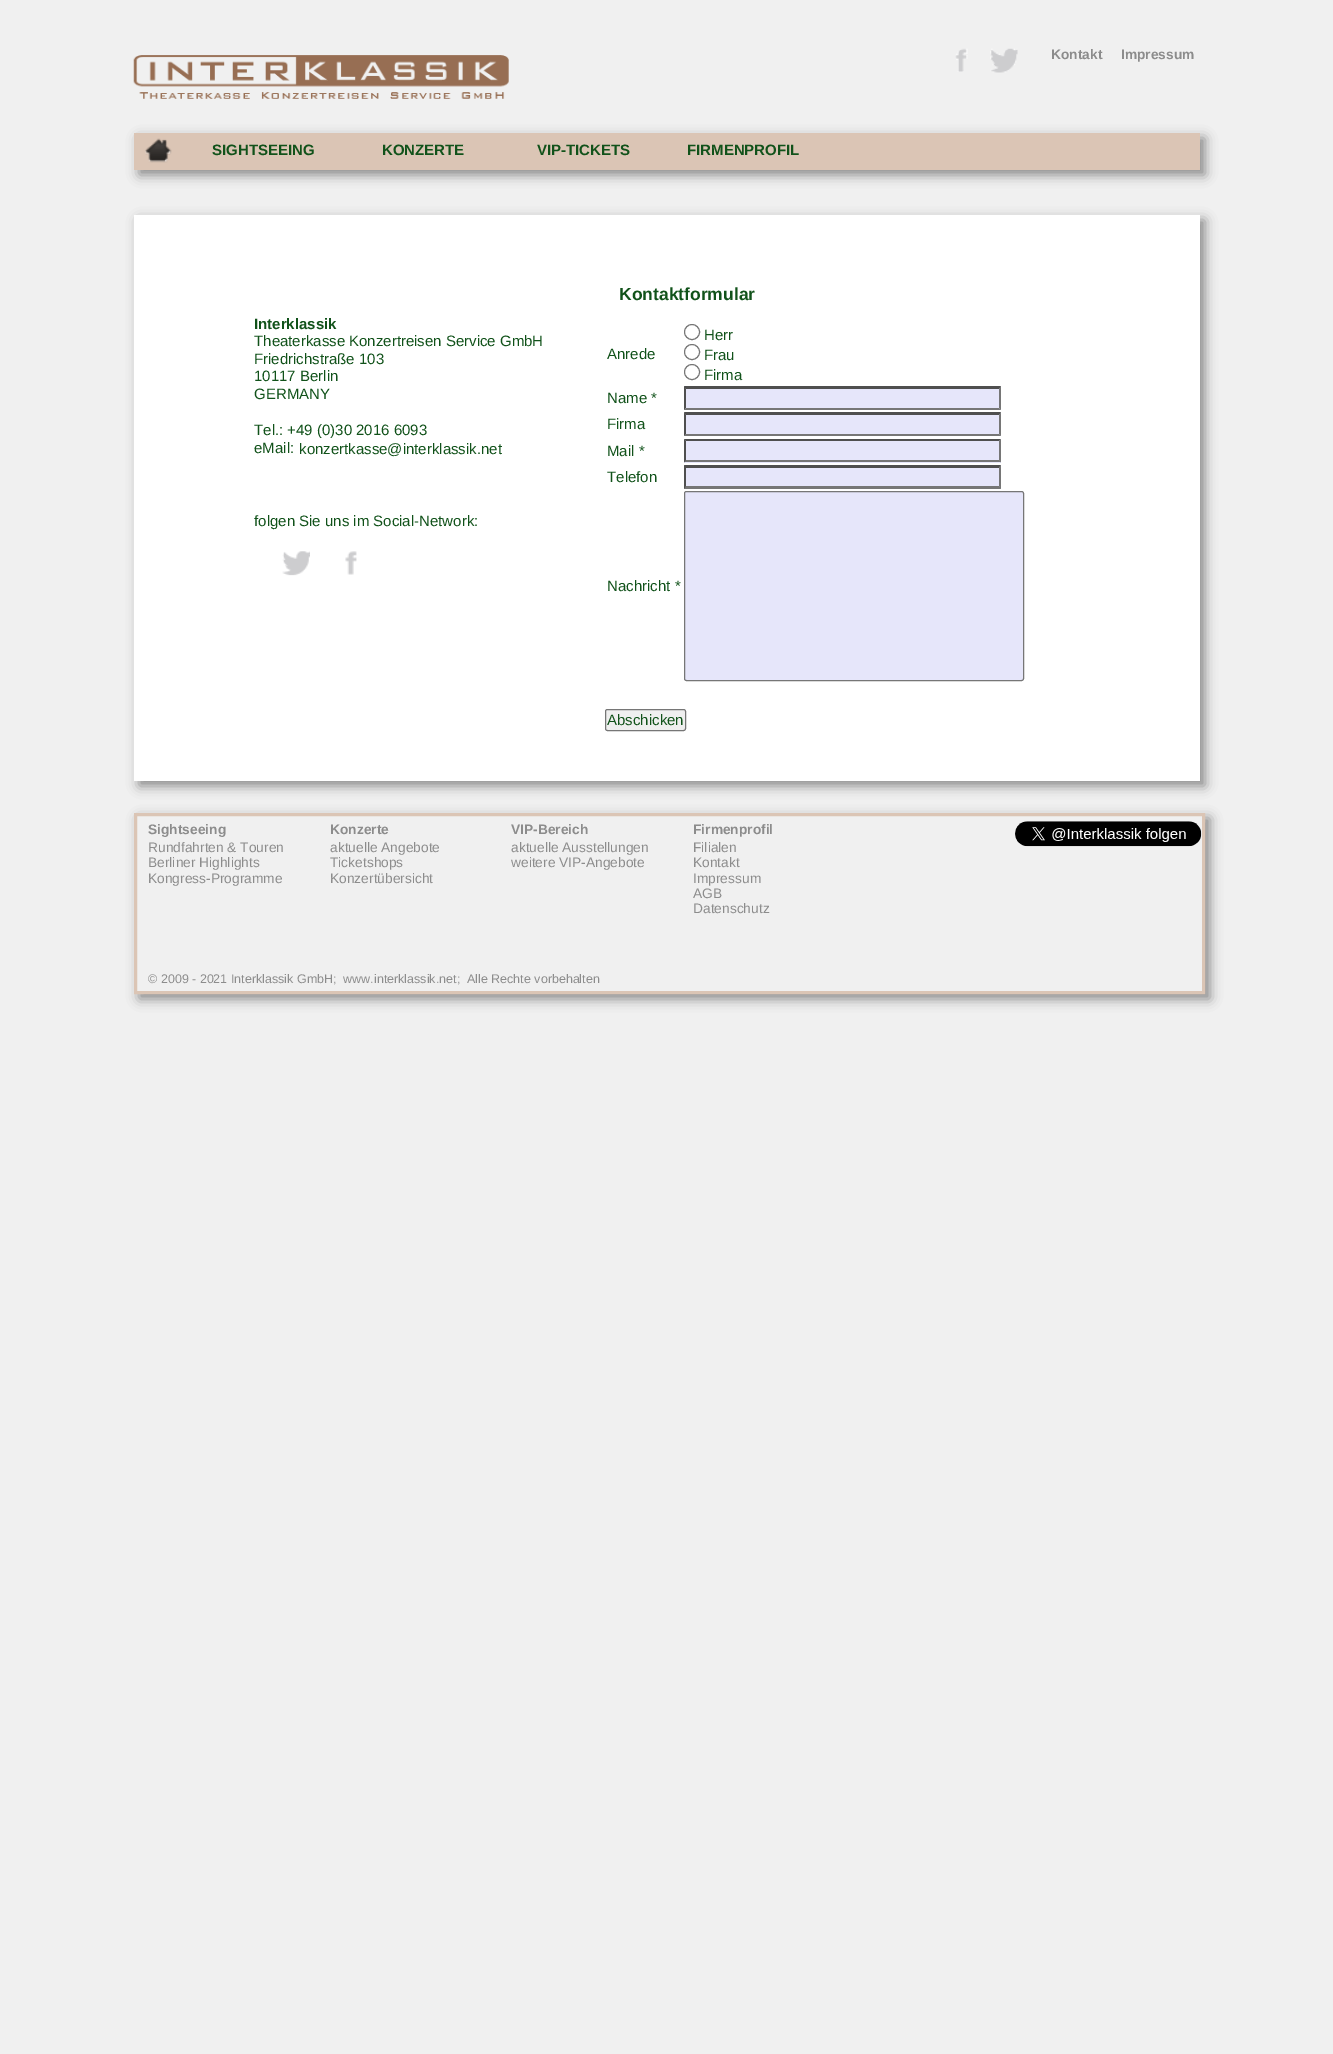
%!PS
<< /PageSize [1333 2054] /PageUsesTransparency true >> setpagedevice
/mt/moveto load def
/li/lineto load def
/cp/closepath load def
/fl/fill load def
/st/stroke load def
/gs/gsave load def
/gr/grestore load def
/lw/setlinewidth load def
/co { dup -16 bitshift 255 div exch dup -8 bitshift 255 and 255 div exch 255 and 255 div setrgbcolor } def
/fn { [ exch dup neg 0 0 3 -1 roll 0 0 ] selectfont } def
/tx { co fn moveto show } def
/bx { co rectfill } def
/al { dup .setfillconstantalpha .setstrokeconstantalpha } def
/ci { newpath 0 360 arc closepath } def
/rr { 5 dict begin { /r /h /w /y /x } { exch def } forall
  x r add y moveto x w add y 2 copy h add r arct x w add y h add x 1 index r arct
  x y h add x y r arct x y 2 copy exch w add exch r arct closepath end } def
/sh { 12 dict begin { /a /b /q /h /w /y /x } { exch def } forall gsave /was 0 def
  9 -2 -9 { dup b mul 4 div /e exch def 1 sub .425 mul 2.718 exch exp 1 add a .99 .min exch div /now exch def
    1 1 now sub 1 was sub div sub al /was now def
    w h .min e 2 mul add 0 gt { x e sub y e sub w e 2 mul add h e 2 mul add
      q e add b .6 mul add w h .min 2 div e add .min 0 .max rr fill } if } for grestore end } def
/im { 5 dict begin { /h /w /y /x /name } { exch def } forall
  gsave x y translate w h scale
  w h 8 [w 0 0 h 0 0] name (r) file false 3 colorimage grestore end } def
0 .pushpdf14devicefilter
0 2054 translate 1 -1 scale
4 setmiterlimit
0 0 1333 2054 16#F0F0F0 bx
(media/1.raw) 955 48 13 24 im
(media/2.raw) 990 48 28 25 im
16#888888 co
139 138 1066 37 0 6 1 sh
134 133 1066 37 16#DBC5B5 bx
(media/3.raw) 145 138 27 25 im
16#888888 co
139 220 1066 566 0 6 1 sh
134 215 1066 566 16#FFFFFF bx
(media/4.raw) 282 551 28 25 im
(media/5.raw) 345 551 12 24 im
16#767676 co
692 332 7.5 ci st
692 352 7.5 ci st
692 372 7.5 ci st
684 386 317 24 16#E6E6FA bx
16#4F4F4F co
684 386 mt 1001 386 li 999 389 li 686 389 li cp fl
16#767676 co
1001 386 mt 1001 410 li 999 407.5 li 999 389 li cp fl
1001 410 mt 684 410 li 686 408 li 999 408 li cp fl
16#4F4F4F co
684 410 mt 684 386 li 686 389 li 686 407.5 li cp fl
684 413 317 23 16#E6E6FA bx
16#4F4F4F co
684 412 mt 1001 412 li 999 415 li 686 415 li cp fl
16#767676 co
1001 412.5 mt 1001 436 li 999 434 li 999 415 li cp fl
1001 436 mt 684 436 li 686 434 li 999 434 li cp fl
16#4F4F4F co
684 436 mt 684 412.5 li 686 415 li 686 434 li cp fl
684 439 317 24 16#E6E6FA bx
16#4F4F4F co
684 439 mt 1001 439 li 999 441 li 686 441 li cp fl
16#767676 co
1001 439 mt 1001 462.5 li 999 460 li 999 441 li cp fl
1001 462 mt 684 462 li 686 460 li 999 460 li cp fl
16#4F4F4F co
684 462.5 mt 684 439 li 686 441 li 686 460 li cp fl
684 465 317 24 16#E6E6FA bx
16#4F4F4F co
684 465 mt 1001 465 li 999 468 li 686 468 li cp fl
16#767676 co
1001 465 mt 1001 489 li 999 486 li 999 467.5 li cp fl
1001 489 mt 684 489 li 686 486 li 999 486 li cp fl
16#4F4F4F co
684 489 mt 684 465 li 686 467.5 li 686 486 li cp fl
16#E6E6FA co
684.5 491.5 339 189 2 rr gs fl gr
16#767676 co
st
16#EFEFEF co
605.5 709.5 80 21 2 rr gs fl gr
16#767676 co
st
gs
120 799 mt 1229 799 li 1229 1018 li 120 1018 li cp 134 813 mt 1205 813 li 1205 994 li 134 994 li cp eoclip newpath
16#888888 co
139 818 1071 181 0 6 1 sh
gr
16#DBC5B5 co
3 lw
135.5 814.5 1068 178 rectstroke
(media/6.raw) 1015 821 187 26 im
(media/7.raw) 133 55 376 44 im
(Kontakt) 1051 59 /LiberationSans-Bold 13.75 16#8C8C8C tx
(Impressum) 1121 59 /LiberationSans-Bold 13.75 16#8C8C8C tx
(SIGHTSEEING) 212 155 /LiberationSans-Bold 15 16#11521A tx
(KONZERTE) 382 155 /LiberationSans-Bold 15 16#11521A tx
(VIP-TICKETS) 537 155 /LiberationSans-Bold 15 16#11521A tx
(FIRMENPROFIL) 687 155 /LiberationSans-Bold 15 16#11521A tx
(Interklassik) 254 329 /LiberationSans-Bold 15 16#11521A tx
(Theaterkasse Konzertreisen Service GmbH) 254 346 /LiberationSans-Regular 15 16#11521A tx
(Friedrichstraße 103) 254 364 /LiberationSans-Regular 15 16#11521A tx
(10117 Berlin) 254 381 /LiberationSans-Regular 15 16#11521A tx
(GERMANY) 254 399 /LiberationSans-Regular 15 16#11521A tx
(Tel.: +49 \(0\)30 2016 6093) 254 435 /LiberationSans-Regular 15 16#11521A tx
(eMail:) 254 453 /LiberationSans-Regular 15 16#11521A tx
(konzertkasse@interklassik.net) 299 454 /LiberationSans-Regular 15 16#11521A tx
(folgen Sie uns im Social-Network:) 254 526 /LiberationSans-Regular 15 16#11521A tx
(Kontaktformular) 619 300 /LiberationSans-Bold 17.5 16#11521A tx
(Anrede) 607 359 /LiberationSans-Regular 15 16#11521A tx
(Herr) 704 340 /LiberationSans-Regular 15 16#11521A tx
(Frau) 704 360 /LiberationSans-Regular 15 16#11521A tx
(Firma) 704 380 /LiberationSans-Regular 15 16#11521A tx
(Name *) 607 403 /LiberationSans-Regular 15 16#11521A tx
(Firma) 607 429 /LiberationSans-Regular 15 16#11521A tx
(Mail *) 607 456 /LiberationSans-Regular 15 16#11521A tx
(Telefon) 607 482 /LiberationSans-Regular 15 16#11521A tx
(Nachricht *) 607 591 /LiberationSans-Regular 15 16#11521A tx
(Abschicken) 607 725 /LiberationSans-Regular 15 16#11521A tx
(Sightseeing) 148 834 /LiberationSans-Bold 13.75 16#8C8C8C tx
(Rundfahrten & Touren) 148 852 /LiberationSans-Regular 13.75 16#8C8C8C tx
(Berliner Highlights) 148 867 /LiberationSans-Regular 13.75 16#8C8C8C tx
(Kongress-Programme) 148 883 /LiberationSans-Regular 13.75 16#8C8C8C tx
(Konzerte) 330 834 /LiberationSans-Bold 13.75 16#8C8C8C tx
(aktuelle Angebote) 330 852 /LiberationSans-Regular 13.75 16#8C8C8C tx
(Ticketshops) 330 867 /LiberationSans-Regular 13.75 16#8C8C8C tx
(Konzertübersicht) 330 883 /LiberationSans-Regular 13.75 16#8C8C8C tx
(VIP-Bereich) 511 834 /LiberationSans-Bold 13.75 16#8C8C8C tx
(aktuelle Ausstellungen) 511 852 /LiberationSans-Regular 13.75 16#8C8C8C tx
(weitere VIP-Angebote) 511 867 /LiberationSans-Regular 13.75 16#8C8C8C tx
(Firmenprofil) 693 834 /LiberationSans-Bold 13.75 16#8C8C8C tx
(Filialen) 693 852 /LiberationSans-Regular 13.75 16#8C8C8C tx
(Kontakt) 693 867 /LiberationSans-Regular 13.75 16#8C8C8C tx
(Impressum) 693 883 /LiberationSans-Regular 13.75 16#8C8C8C tx
(AGB) 693 898 /LiberationSans-Regular 13.75 16#8C8C8C tx
(Datenschutz) 693 913 /LiberationSans-Regular 13.75 16#8C8C8C tx
(© 2009 - 2021 Interklassik GmbH;  www.interklassik.net;  Alle Rechte vorbehalten) 148 983 /LiberationSans-Regular 12.5 16#8C8C8C tx
.poppdf14devicefilter showpage
